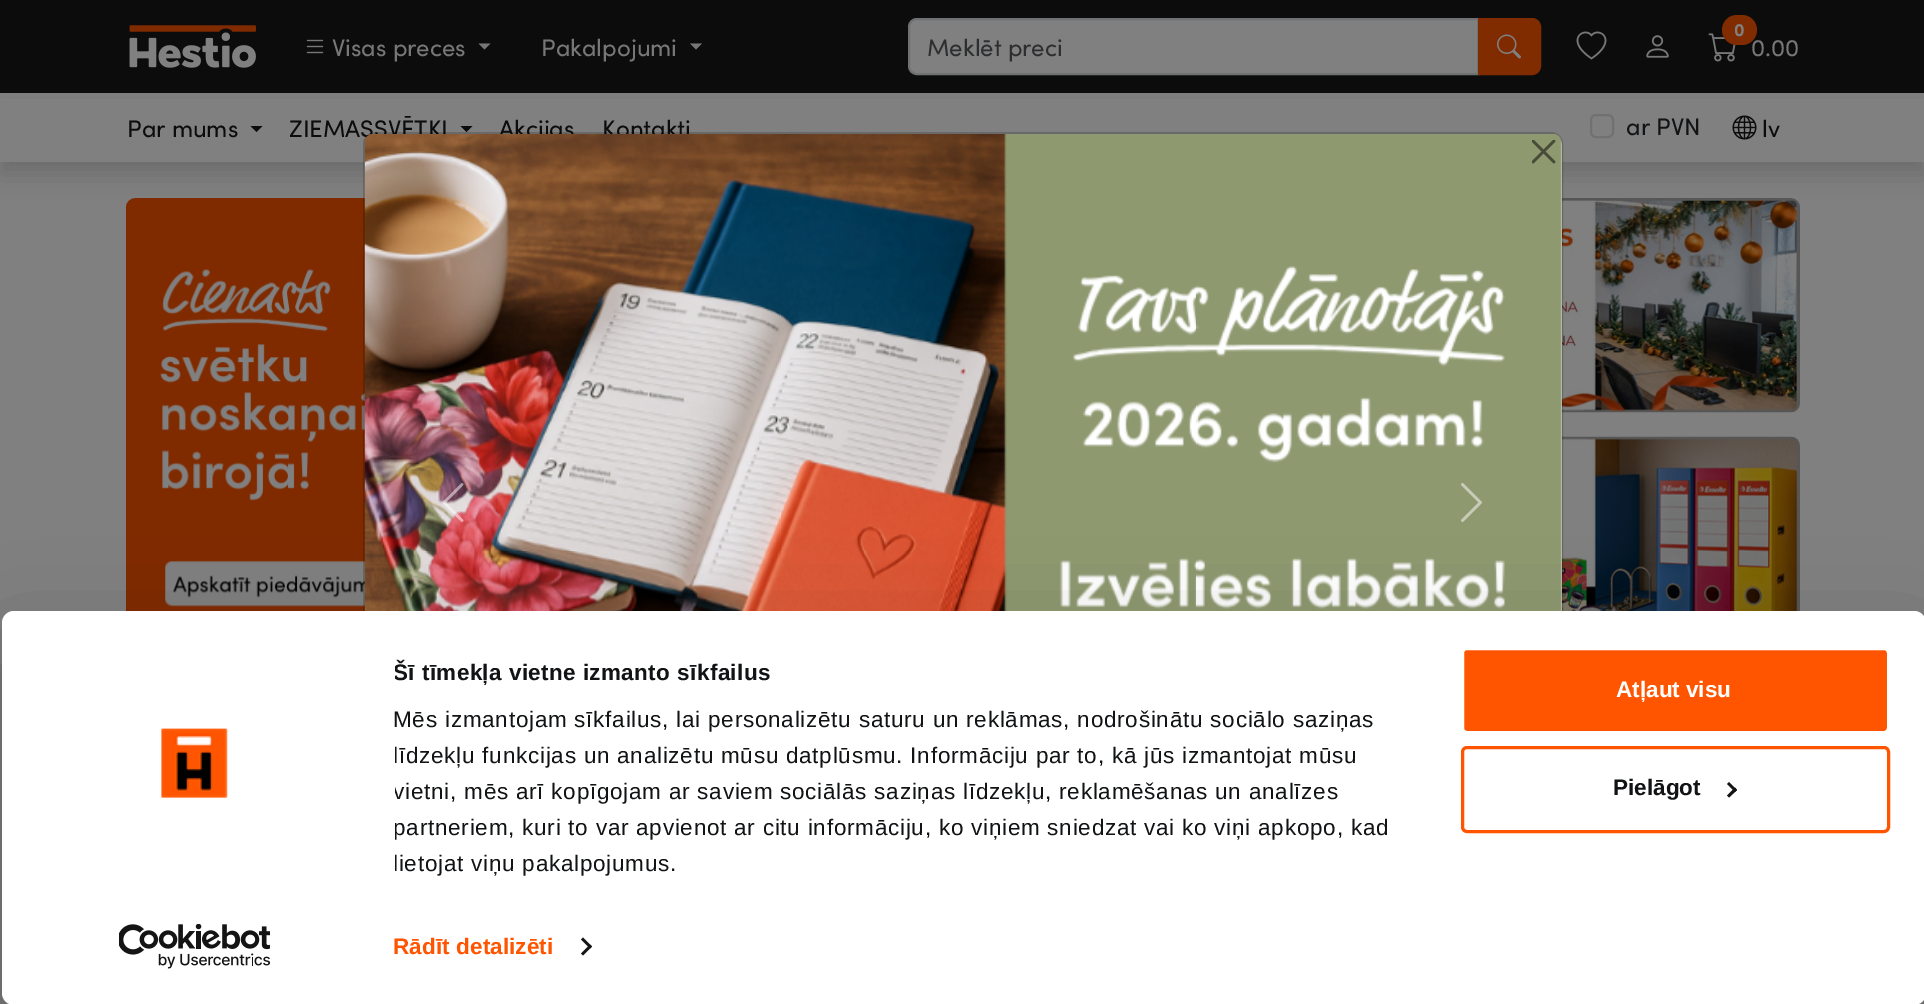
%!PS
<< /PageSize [1924 1004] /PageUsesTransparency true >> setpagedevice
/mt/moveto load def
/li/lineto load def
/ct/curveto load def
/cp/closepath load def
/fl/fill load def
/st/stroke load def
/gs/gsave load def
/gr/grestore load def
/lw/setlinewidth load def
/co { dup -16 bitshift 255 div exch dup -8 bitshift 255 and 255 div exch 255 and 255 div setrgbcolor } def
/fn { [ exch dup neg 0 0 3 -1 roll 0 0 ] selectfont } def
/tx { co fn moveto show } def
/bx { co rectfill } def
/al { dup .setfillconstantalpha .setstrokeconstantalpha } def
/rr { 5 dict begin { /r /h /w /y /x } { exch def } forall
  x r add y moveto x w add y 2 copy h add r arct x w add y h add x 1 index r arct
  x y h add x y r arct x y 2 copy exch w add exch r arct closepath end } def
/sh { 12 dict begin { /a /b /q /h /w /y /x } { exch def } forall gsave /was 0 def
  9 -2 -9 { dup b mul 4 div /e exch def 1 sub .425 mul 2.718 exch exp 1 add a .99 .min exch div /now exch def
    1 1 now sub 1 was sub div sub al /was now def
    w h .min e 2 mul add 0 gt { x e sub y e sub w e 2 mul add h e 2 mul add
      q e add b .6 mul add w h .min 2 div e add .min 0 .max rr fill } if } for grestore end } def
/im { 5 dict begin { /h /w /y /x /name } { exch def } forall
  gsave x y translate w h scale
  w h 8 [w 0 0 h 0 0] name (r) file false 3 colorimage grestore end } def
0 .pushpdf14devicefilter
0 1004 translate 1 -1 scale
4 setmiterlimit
0 0 1924 1004 16#0C0C0C bx
(media/1.raw) 129 25 127 43 im
(media/2.raw) 306 39 18 15 im
16#777777 co
478.5 43.5 mt 490.5 43.5 li 484.5 49.5 li cp fl
690 43.5 mt 702 43.5 li 696 49.5 li cp fl
0 93 1924 911 16#808080 bx
gs
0 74 mt 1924 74 li 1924 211 li 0 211 li cp 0 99 mt 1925 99 li 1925 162 li 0 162 li cp eoclip newpath
16#000000 co
0 111 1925 63 0 12 .15 sh
gr
917 19 mt 1478 19 li 1478 74 li 917 74 li 912.5 74 909 70.5 909 66 ct 909 27 li 909 22.5 912.5 19 917 19 ct cp gs fl gr
16#6F7173 co
2 lw
st
16#802B00 co
1479 19 mt 1532 19 li 1536.5 19 1540 22.5 1540 27 ct 1540 66 li 1540 70.5 1536.5 74 1532 74 ct 1479 74 li cp gs fl gr
st
(media/3.raw) 1497 34 24 25 im
(media/4.raw) 1576 31 31 29 im
(media/5.raw) 1646 35 23 23 im
(media/6.raw) 1708 33 28 29 im
16#0C0C0C co
250.5 126 mt 262.5 126 li 256.5 132 li cp fl
460.5 126 mt 472.5 126 li 466.5 132 li cp fl
16#6F7173 co
1591 115 22 22 5 rr st
(media/7.raw) 1732 115 25 25 im
(media/8.raw) 126 198 239 413 im
(media/9.raw) 1562 198 238 215 im
(media/10.raw) 1562 436 238 175 im
(Visas preces) 332 56 /Sofia-Regular 24 16#777777 tx
(Pakalpojumi) 541 56 /Sofia-Regular 24 16#777777 tx
(Meklēt preci) 927 56 /Sofia-Regular 24 16#2D2E30 tx
(0.00) 1751 56 /Sofia-Regular 24 16#777777 tx
16#802B00 co
1722 15 35 30 15 rr fl
(0) 1734 36 /Sofia-Bold 18 16#808080 tx
(Par mums) 127 137 /Sofia-Regular 24 16#0C0C0C tx
(ZIEMASSVĒTKI) 289 137 /Sofia-Regular 24 16#0C0C0C tx
(Akcijas) 499 137 /Sofia-Regular 24 16#0C0C0C tx
(Kontakti) 602 137 /Sofia-Regular 24 16#0C0C0C tx
(ar PVN) 1626 135 /Sofia-Regular 24 16#111315 tx
(lv) 1762 137 /Sofia-Regular 24 16#0C0C0C tx
16#FFFFFF co
365 134 1197 738 11 rr fl
0.18 al
16#000000 co
364 133 1198 739 11 rr st
1 al
(media/11.raw) 364 134 1198 477 im
(media/12.raw) 442 483 22 39 im
(media/13.raw) 1461 483 21 39 im
(media/14.raw) 1532 140 24 24 im
gs
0 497 mt 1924 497 li 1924 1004 li 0 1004 li cp 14 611 mt 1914 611 li 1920.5 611 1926 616.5 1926 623 ct 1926 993 li 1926 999.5 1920.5 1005 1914 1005 ct 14 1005 li 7.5 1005 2 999.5 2 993 ct 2 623 li 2 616.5 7.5 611 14 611 ct cp eoclip newpath
2 656 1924 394 12 52.5 .3 sh
gr
16#FFFFFF co
2 611 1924 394 12 rr fl
(media/15.raw) 161 728 67 70 im
(media/16.raw) 119 924 151 45 im
gs
395 656 1057 226 rectclip
/LiberationSans-Bold 22.5 fn
16#111315 co
393 680 mt .4 0 (Šī tīmekļa vietne izmanto sīkfailus) ashow
gr
/LiberationSans-Regular 22.5 fn
16#111315 co
393 727 mt .75 0 (Mēs izmantojam sīkfailus, lai personalizētu saturu un reklāmas, nodrošinātu sociālo saziņas) ashow
gs
395 656 1057 226 rectclip
393 763 mt .75 0 (līdzekļu funkcijas un analizētu mūsu datplūsmu. Informāciju par to, kā jūs izmantojat mūsu) ashow
393 799 mt .75 0 (vietni, mēs arī kopīgojam ar saviem sociālās saziņas līdzekļu, reklamēšanas un analīzes) ashow
393 835 mt .75 0 (partneriem, kuri to var apvienot ar citu informāciju, ko viņiem sniedzat vai ko viņi apkopo, kad) ashow
393 871 mt .75 0 (lietojat viņu pakalpojumus.) ashow
gr
/LiberationSans-Bold 22.5 fn
16#FF5500 co
393 954 mt .1 0 (Rādīt detalizēti) ashow
16#141414 co
583 937.5 mt 592 946.5 li 590 948.5 li 581 939.5 li cp fl
590 944.5 mt 592 946.5 li 583 955.5 li 581 953.5 li cp fl
16#FF5500 co
1462.5 648.5 426 84 4.5 rr gs fl gr
16#FFFFFF co
3 lw
st
(Atļaut visu) 1616 697 /LiberationSans-Bold 22.5 16#FFFFFF tx
16#FF5500 co
1462.5 747.5 426 84 4.5 rr st
(Pielāgot) 1613 795 /LiberationSans-Bold 22.5 16#111315 tx
16#141414 co
1729 782 mt 1737 790 li 1735 792 li 1727 784 li cp fl
1735 787.5 mt 1737 790 li 1729 797.5 li 1727 795.5 li cp fl
.poppdf14devicefilter showpage
